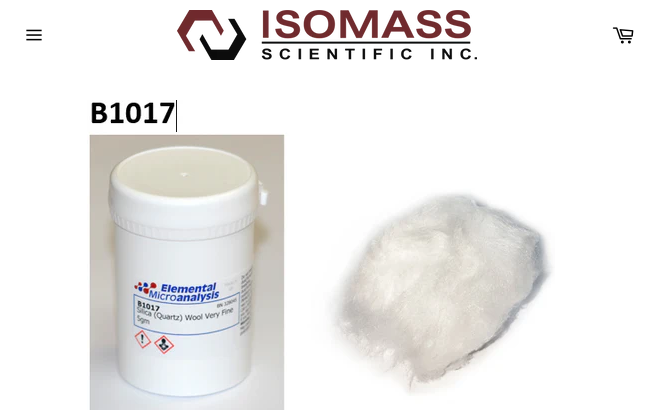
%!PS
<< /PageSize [654 410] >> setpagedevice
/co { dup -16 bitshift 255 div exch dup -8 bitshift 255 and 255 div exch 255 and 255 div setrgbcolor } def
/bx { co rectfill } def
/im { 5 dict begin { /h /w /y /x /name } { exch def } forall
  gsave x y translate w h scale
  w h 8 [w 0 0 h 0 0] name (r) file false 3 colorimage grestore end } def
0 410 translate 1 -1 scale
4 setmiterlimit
0 0 654 410 16#FFFFFF bx
(media/1.raw) 26 29 16 12 im
(media/2.raw) 177 10 300 50 im
(media/3.raw) 612 27 22 17 im
(media/4.raw) 87 100 468 310 im
showpage
